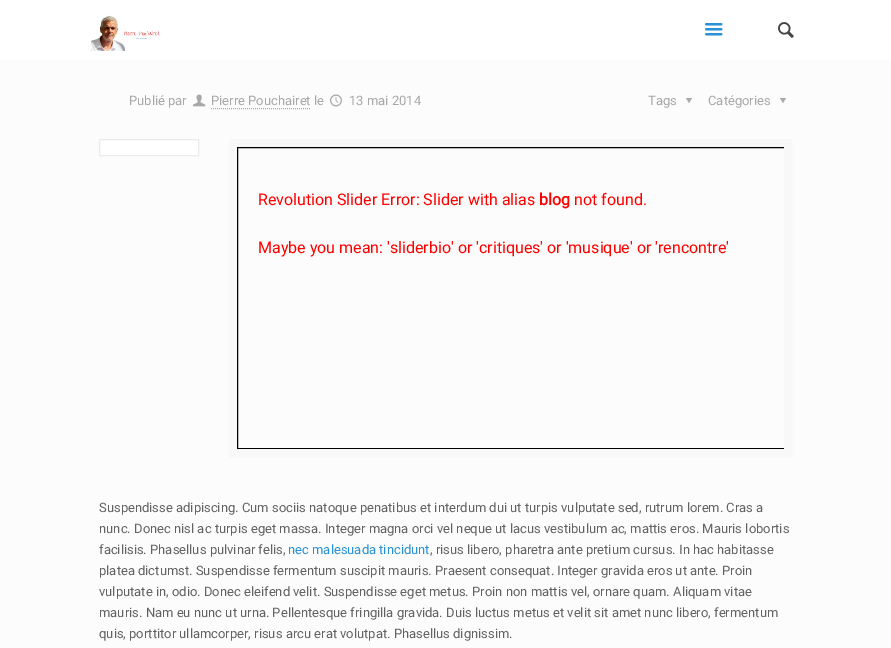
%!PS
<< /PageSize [891 648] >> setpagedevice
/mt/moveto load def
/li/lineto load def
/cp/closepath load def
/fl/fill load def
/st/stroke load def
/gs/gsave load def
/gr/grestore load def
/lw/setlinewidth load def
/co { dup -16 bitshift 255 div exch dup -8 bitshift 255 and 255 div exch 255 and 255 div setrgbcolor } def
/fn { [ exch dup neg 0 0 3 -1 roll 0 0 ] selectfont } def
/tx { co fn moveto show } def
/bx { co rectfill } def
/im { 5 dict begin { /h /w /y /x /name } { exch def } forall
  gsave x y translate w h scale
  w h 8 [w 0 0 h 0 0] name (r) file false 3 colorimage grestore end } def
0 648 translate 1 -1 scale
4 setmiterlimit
0 0 891 648 16#FCFCFC bx
0 0 891 60 16#FFFFFF bx
(media/1.raw) 91 15 69 36 im
(media/2.raw) 705 23 18 13 im
(media/3.raw) 778 22 16 16 im
(media/4.raw) 193 94 13 13 im
16#A8A8A8 co
[1 1] 0 setdash
211 108.5 mt 311 108.5 li st
(media/5.raw) 330 94 12 13 im
692 98 mt 689 103 li 686 98 li cp fl
786 98 mt 783 103 li 780 98 li cp fl
16#FFFFFF co
99.5 139.5 mt 198.5 139.5 li 198.5 155.5 li 99.5 155.5 li cp gs fl gr
16#EBEBEB co
[] 0 setdash
st
16#F8F8F8 co
8 lw
233 143 555 310 rectstroke
gs
237 147 547 302 rectclip
16#000000 co
1 lw
237.5 147.5 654 301 rectstroke
gr
(Publié par) 129 105 /Roboto-Regular 13 16#A8A8A8 tx
(Pierre Pouchairet le) 211 105 /Roboto-Regular 13 16#A8A8A8 tx
(13 mai 2014) 349 105 /Roboto-Regular 13 16#A8A8A8 tx
(Tags) 648 105 /Roboto-Regular 13 16#A8A8A8 tx
(Catégories) 708 105 /Roboto-Regular 13 16#A8A8A8 tx
(Revolution Slider Error: Slider with alias) 258 205 /Roboto-Regular 16 16#FF0000 tx
(blog) 539 205 /Roboto-Bold 16 16#FF0000 tx
(not found.) 574 205 /Roboto-Regular 16 16#FF0000 tx
(Maybe you mean: 'sliderbio' or 'critiques' or 'musique' or 'rencontre') 258 253 /Roboto-Regular 16 16#FF0000 tx
(Suspendisse adipiscing. Cum sociis natoque penatibus et interdum dui ut turpis vulputate sed, rutrum lorem. Cras a) 99 512 /Roboto-Regular 13 16#626262 tx
(nunc. Donec nisl ac turpis eget massa. Integer magna orci vel neque ut lacus vestibulum ac, mattis eros. Mauris lobortis) 99 533 /Roboto-Regular 13 16#626262 tx
(facilisis. Phasellus pulvinar felis,) 99 554 /Roboto-Regular 13 16#626262 tx
(nec malesuada tincidunt) 288 554 /Roboto-Regular 13 16#2991D6 tx
(, risus libero, pharetra ante pretium cursus. In hac habitasse) 430 554 /Roboto-Regular 13 16#626262 tx
(platea dictumst. Suspendisse fermentum suscipit mauris. Praesent consequat. Integer gravida eros ut ante. Proin) 99 575 /Roboto-Regular 13 16#626262 tx
(vulputate in, odio. Donec eleifend velit. Suspendisse eget metus. Proin non mattis vel, ornare quam. Aliquam vitae) 99 596 /Roboto-Regular 13 16#626262 tx
(mauris. Nam eu nunc ut urna. Pellentesque fringilla gravida. Duis luctus metus et velit sit amet nunc libero, fermentum) 99 617 /Roboto-Regular 13 16#626262 tx
(quis, porttitor ullamcorper, risus arcu erat volutpat. Phasellus dignissim.) 99 638 /Roboto-Regular 13 16#626262 tx
showpage
